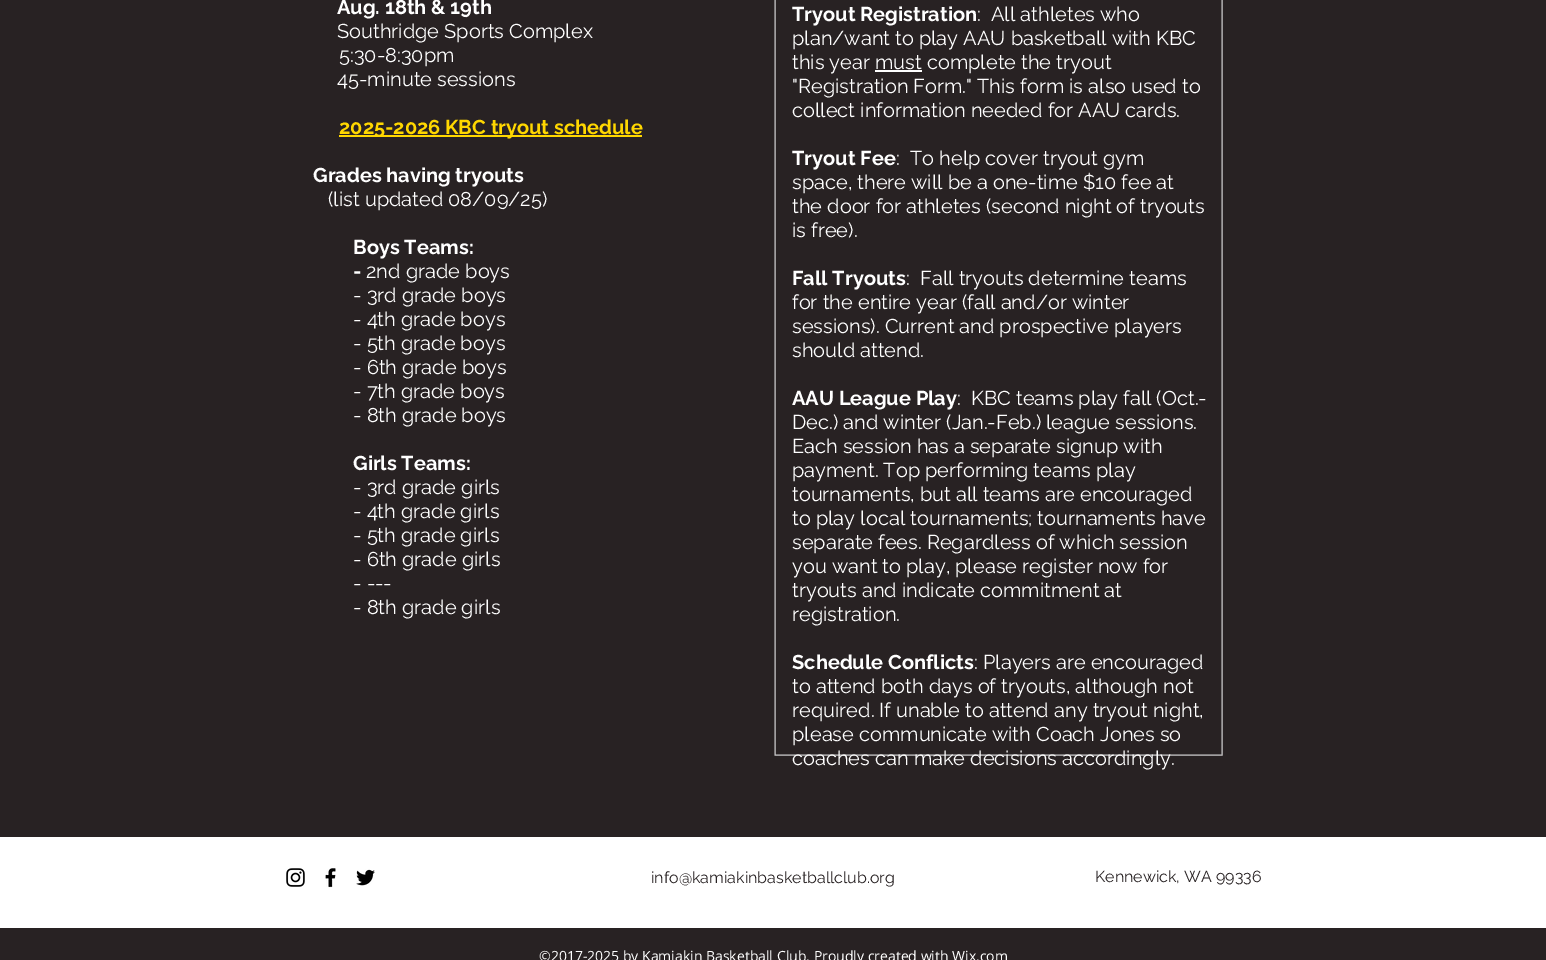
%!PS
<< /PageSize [1546 960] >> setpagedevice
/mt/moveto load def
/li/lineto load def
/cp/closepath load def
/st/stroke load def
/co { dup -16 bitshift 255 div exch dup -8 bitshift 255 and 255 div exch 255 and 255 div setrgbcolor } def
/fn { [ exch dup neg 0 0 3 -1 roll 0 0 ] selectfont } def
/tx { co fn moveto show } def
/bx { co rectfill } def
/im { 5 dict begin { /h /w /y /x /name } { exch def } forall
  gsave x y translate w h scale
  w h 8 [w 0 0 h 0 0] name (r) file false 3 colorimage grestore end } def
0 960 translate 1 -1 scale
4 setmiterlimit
0 0 1546 960 16#282223 bx
339 135 303 2 16#FFD700 bx
16#CCCCCC co
1222 -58 mt 1222 755 li 775 755 li 775 -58 li cp st
875 70 47 2 16#FFFFFF bx
0 837 1546 91 16#FFFFFF bx
(media/1.raw) 286 868 19 19 im
(media/2.raw) 325 868 11 20 im
(media/3.raw) 356 869 19 17 im
(Aug. 18th & 19th) 337 14 /Raleway-Bold 20 16#FFFFFF tx
(Southridge Sports Complex) 337 38 /Raleway-Regular 20 16#FFFFFF tx
(5:30-8:30pm) 339 62 /Raleway-Regular 20 16#FFFFFF tx
(45-minute sessions) 337 86 /Raleway-Regular 20 16#FFFFFF tx
(2025-2026 KBC tryout schedule) 339 134 /Raleway-Bold 20 16#FFD700 tx
(Grades having tryouts) 313 182 /Raleway-Bold 20 16#FFFFFF tx
(\(list updated 08/09/25\)) 328 206 /Raleway-Regular 20 16#FFFFFF tx
(Boys Teams:) 353 254 /Raleway-Bold 20 16#FFFFFF tx
(-) 353 278 /Raleway-Bold 20 16#FFFFFF tx
(2nd grade boys) 366 278 /Raleway-Regular 20 16#FFFFFF tx
(- 3rd grade boys) 353 302 /Raleway-Regular 20 16#FFFFFF tx
(- 4th grade boys) 353 326 /Raleway-Regular 20 16#FFFFFF tx
(- 5th grade boys) 353 350 /Raleway-Regular 20 16#FFFFFF tx
(- 6th grade boys) 353 374 /Raleway-Regular 20 16#FFFFFF tx
(- 7th grade boys) 353 398 /Raleway-Regular 20 16#FFFFFF tx
(- 8th grade boys) 353 422 /Raleway-Regular 20 16#FFFFFF tx
(Girls Teams:) 353 470 /Raleway-Bold 20 16#FFFFFF tx
(- 3rd grade girls) 353 494 /Raleway-Regular 20 16#FFFFFF tx
(- 4th grade girls) 353 518 /Raleway-Regular 20 16#FFFFFF tx
(- 5th grade girls) 353 542 /Raleway-Regular 20 16#FFFFFF tx
(- 6th grade girls) 353 566 /Raleway-Regular 20 16#FFFFFF tx
(- ---) 353 590 /Raleway-Regular 20 16#FFFFFF tx
(- 8th grade girls) 353 614 /Raleway-Regular 20 16#FFFFFF tx
(Tryout Registration) 792 21 /Raleway-Bold 20 16#FFFFFF tx
(:  All athletes who) 977 21 /Raleway-Regular 20 16#FFFFFF tx
(plan/want to play AAU basketball with KBC) 792 45 /Raleway-Regular 20 16#FFFFFF tx
(this year must complete the tryout) 792 69 /Raleway-Regular 20 16#FFFFFF tx
("Registration Form." This form is also used to) 792 93 /Raleway-Regular 20 16#FFFFFF tx
(collect information needed for AAU cards.) 792 117 /Raleway-Regular 20 16#FFFFFF tx
(Tryout Fee) 792 165 /Raleway-Bold 20 16#FFFFFF tx
(:  To help cover tryout gym) 896 165 /Raleway-Regular 20 16#FFFFFF tx
(space, there will be a one-time $10 fee at) 792 189 /Raleway-Regular 20 16#FFFFFF tx
(the door for athletes \(second night of tryouts) 792 213 /Raleway-Regular 20 16#FFFFFF tx
(is free\).) 792 237 /Raleway-Regular 20 16#FFFFFF tx
(Fall Tryouts) 792 285 /Raleway-Bold 20 16#FFFFFF tx
(:  Fall tryouts determine teams) 906 285 /Raleway-Regular 20 16#FFFFFF tx
(for the entire year \(fall and/or winter) 792 309 /Raleway-Regular 20 16#FFFFFF tx
(sessions\). Current and prospective players) 792 333 /Raleway-Regular 20 16#FFFFFF tx
(should attend.) 792 357 /Raleway-Regular 20 16#FFFFFF tx
(AAU League Play) 792 405 /Raleway-Bold 20 16#FFFFFF tx
(:  KBC teams play fall \(Oct.-) 957 405 /Raleway-Regular 20 16#FFFFFF tx
(Dec.\) and winter \(Jan.-Feb.\) league sessions.) 792 429 /Raleway-Regular 20 16#FFFFFF tx
(Each session has a separate signup with) 792 453 /Raleway-Regular 20 16#FFFFFF tx
(payment. Top performing teams play) 792 477 /Raleway-Regular 20 16#FFFFFF tx
(tournaments, but all teams are encouraged) 792 501 /Raleway-Regular 20 16#FFFFFF tx
(to play local tournaments; tournaments have) 792 525 /Raleway-Regular 20 16#FFFFFF tx
(separate fees. Regardless of which session) 792 549 /Raleway-Regular 20 16#FFFFFF tx
(you want to play, please register now for) 792 573 /Raleway-Regular 20 16#FFFFFF tx
(tryouts and indicate commitment at) 792 597 /Raleway-Regular 20 16#FFFFFF tx
(registration.) 792 621 /Raleway-Regular 20 16#FFFFFF tx
(Schedule Conflicts) 792 669 /Raleway-Bold 20 16#FFFFFF tx
(: Players are encouraged) 974 669 /Raleway-Regular 20 16#FFFFFF tx
(to attend both days of tryouts, although not) 792 693 /Raleway-Regular 20 16#FFFFFF tx
(required. If unable to attend any tryout night,) 792 717 /Raleway-Regular 20 16#FFFFFF tx
(please communicate with Coach Jones so) 792 741 /Raleway-Regular 20 16#FFFFFF tx
(coaches can make decisions accordingly.) 792 765 /Raleway-Regular 20 16#FFFFFF tx
(info@kamiakinbasketballclub.org) 651 883 /Raleway-Regular 16 16#282223 tx
(Kennewick, WA 99336) 1095 882 /Raleway-Regular 16 16#282223 tx
(©2017-2025 by Kamiakin Basketball Club. Proudly created with Wix.com) 539 961 /OpenSans-Regular 14 16#FFFFFF tx
showpage
